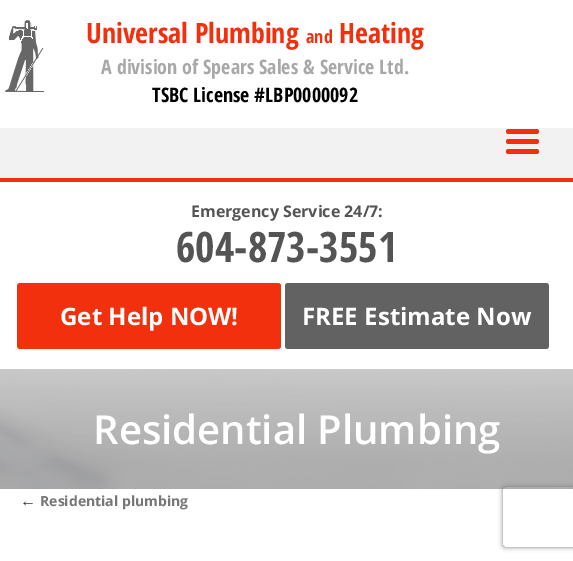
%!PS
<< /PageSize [573 561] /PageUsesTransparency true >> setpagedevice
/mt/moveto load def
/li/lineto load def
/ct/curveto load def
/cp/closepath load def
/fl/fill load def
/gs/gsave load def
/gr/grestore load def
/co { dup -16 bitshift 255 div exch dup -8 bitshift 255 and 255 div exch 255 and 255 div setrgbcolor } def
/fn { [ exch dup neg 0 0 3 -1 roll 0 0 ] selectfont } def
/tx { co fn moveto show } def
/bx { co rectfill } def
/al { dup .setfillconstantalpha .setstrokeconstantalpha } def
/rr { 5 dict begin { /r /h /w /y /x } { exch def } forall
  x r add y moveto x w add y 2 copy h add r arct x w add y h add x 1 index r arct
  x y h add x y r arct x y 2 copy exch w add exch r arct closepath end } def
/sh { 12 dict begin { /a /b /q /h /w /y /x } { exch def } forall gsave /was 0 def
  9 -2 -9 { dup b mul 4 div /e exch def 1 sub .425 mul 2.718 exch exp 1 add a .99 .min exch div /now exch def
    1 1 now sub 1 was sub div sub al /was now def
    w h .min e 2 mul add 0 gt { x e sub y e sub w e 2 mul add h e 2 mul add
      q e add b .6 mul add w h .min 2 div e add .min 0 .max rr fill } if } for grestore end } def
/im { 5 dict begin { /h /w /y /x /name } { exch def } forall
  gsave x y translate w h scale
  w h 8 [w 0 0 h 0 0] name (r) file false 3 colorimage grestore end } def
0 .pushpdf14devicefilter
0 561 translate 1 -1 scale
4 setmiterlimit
0 0 573 561 16#FFFFFF bx
(media/1.raw) 5 20 39 72 im
0 128 573 50 16#F2F2F3 bx
0 178 573 4 16#F3300E bx
506 139 33 5 2.5 rr fl
506 129 33 5 2.5 rr fl
506 149 33 5 2.5 rr fl
17 283 264 66 3 rr fl
16#626262 co
285 283 264 66 3 rr fl
(media/2.raw) 0 369 573 120 im
gs
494 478 mt 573 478 li 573 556 li 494 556 li cp 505 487 mt 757 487 li 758 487 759 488 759 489 ct 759 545 li 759 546 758 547 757 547 ct 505 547 li 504 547 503 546 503 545 ct 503 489 li 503 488 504 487 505 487 ct cp eoclip newpath
16#808080 co
503 487 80 60 2 2.5 1 sh
gr
(Universal Plumbing) 86 43 /OpenSansCondensed-Bold 28 16#F3300E tx
(and) 306 43 /OpenSansCondensed-Bold 18 16#F3300E tx
(Heating) 339 43 /OpenSansCondensed-Bold 28 16#F3300E tx
(A division of Spears Sales & Service Ltd.) 101 74 /OpenSansCondensed-Bold 20 16#A8A8A8 tx
(TSBC License #LBP0000092) 152 102 /OpenSansCondensed-Bold 20 16#000000 tx
(Emergency Service 24/7:) 191 217 /OpenSans-Bold 16 16#545454 tx
(604-873-3551) 176 262 /OpenSansCondensed-Bold 42 16#545454 tx
(Get Help NOW!) 60 325 /OpenSans-Bold 24 16#FFFFFF tx
(FREE Estimate Now) 302 325 /OpenSans-Bold 24 16#FFFFFF tx
(Residential Plumbing) 93 444 /OpenSans-SemiBold 40 16#FFFFFF tx
(←) 20 506 /LiberationSerif-Italic 16 16#333333 tx
(Residential plumbing) 40 506 /OpenSans-Bold 14 16#777777 tx
.poppdf14devicefilter showpage
